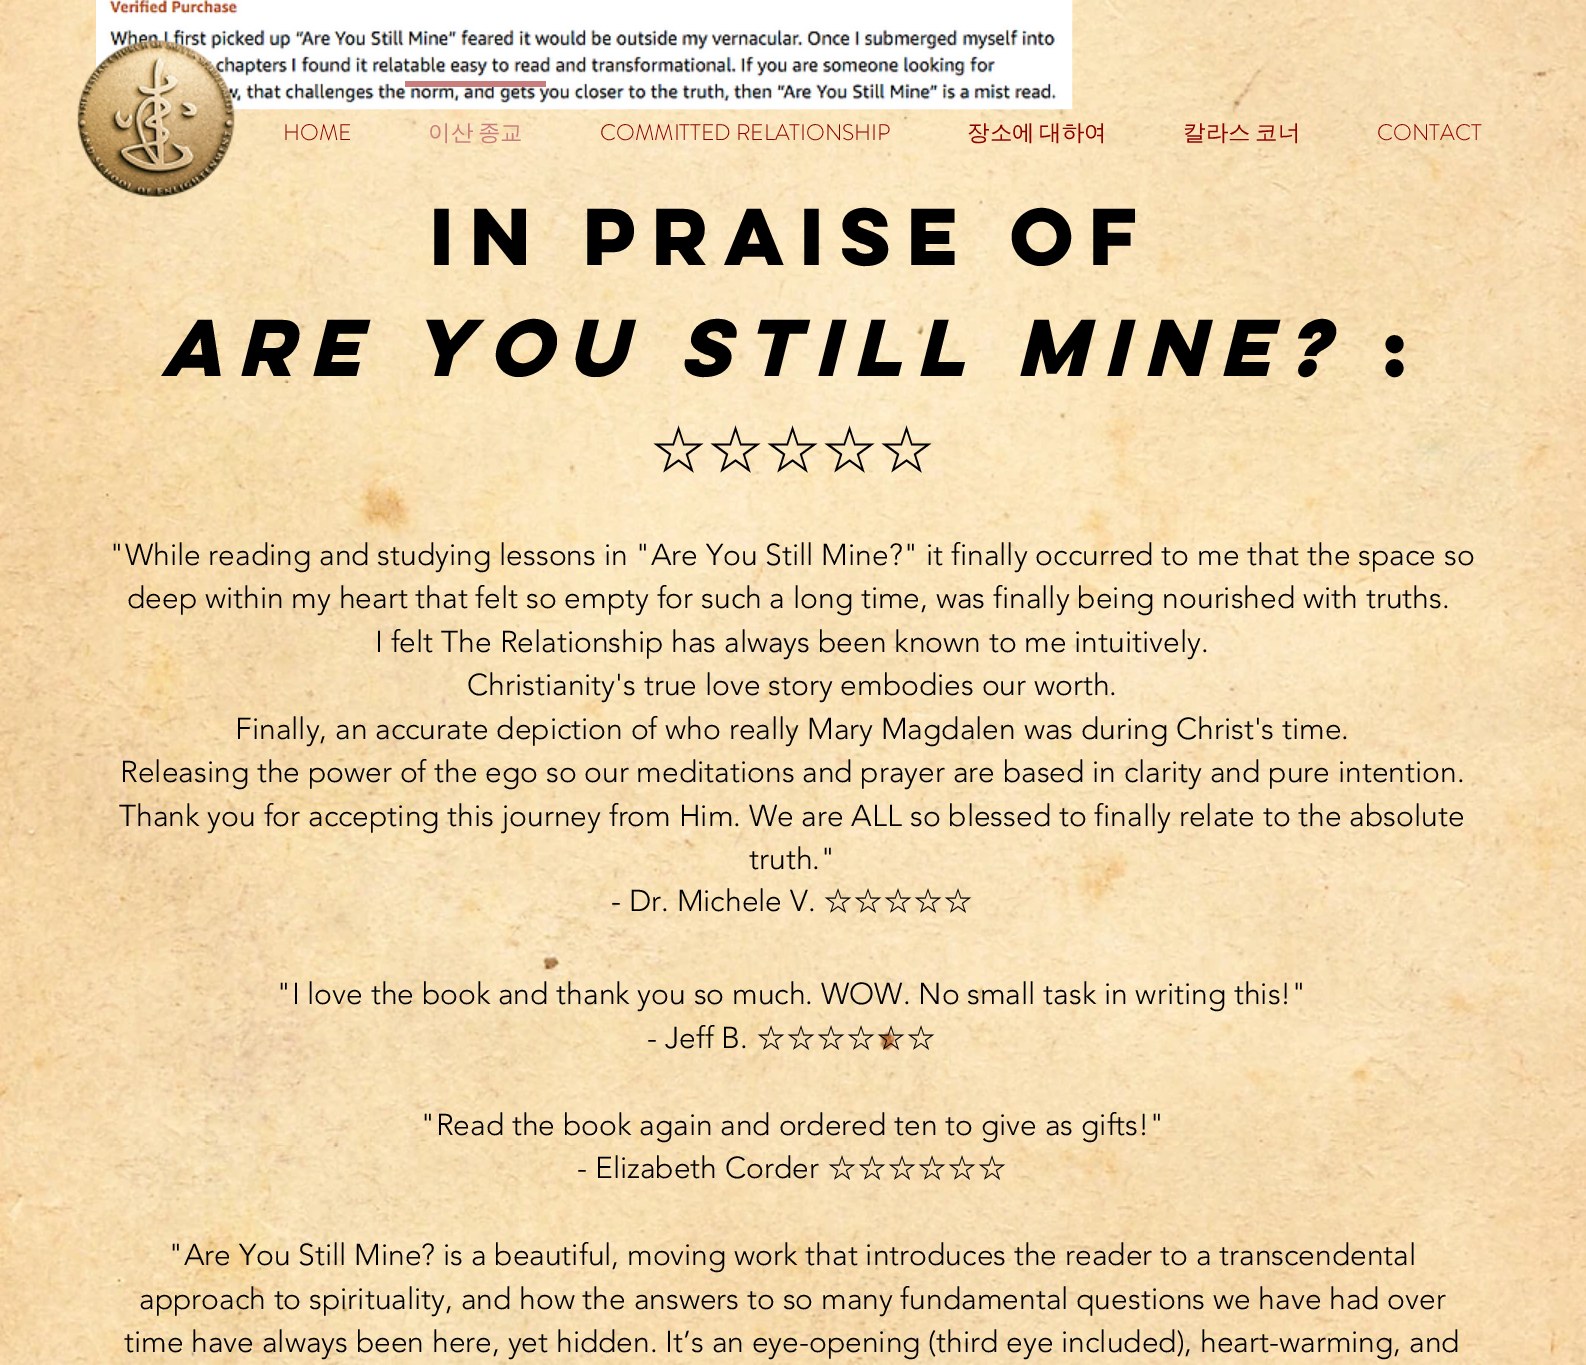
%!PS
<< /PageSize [1586 1365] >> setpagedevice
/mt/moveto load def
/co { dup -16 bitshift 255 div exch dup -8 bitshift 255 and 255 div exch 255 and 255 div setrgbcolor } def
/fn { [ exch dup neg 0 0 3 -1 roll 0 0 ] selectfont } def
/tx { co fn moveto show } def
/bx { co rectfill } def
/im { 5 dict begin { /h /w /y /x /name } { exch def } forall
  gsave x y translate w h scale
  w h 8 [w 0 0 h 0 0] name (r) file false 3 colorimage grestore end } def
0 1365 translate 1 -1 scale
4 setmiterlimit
0 0 1586 1365 16#FFFFFF bx
(media/1.raw) 0 0 1586 1365 im
(media/3.raw) 96 0 977 110 im
(media/2.raw) 77 40 158 157 im
405 81 141 6 16#C97D7D bx
(HOME) 283 140 /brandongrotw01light-Light 22.5 16#8B0000 tx
/WenQuanYiZenHei-Medium 22.5 fn
16#C97D7D co
428 140 mt -2 0 32 (이산 종교) widthshow
(COMMITTED RELATIONSHIP) 600 140 /brandongrotw01light-Light 22.5 16#8B0000 tx
/WenQuanYiZenHei-Medium 22.5 fn
967 140 mt -2 0 32 (장소에 대하여) widthshow
1183 140 mt -2 0 32 (칼라스 코너) widthshow
(CONTACT) 1377 140 /brandongrotw01light-Light 22.5 16#8B0000 tx
(In Praise of) 430 265 /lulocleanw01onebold-Bold 72 16#000000 tx
(Are You Still Mine?) 161 376 /lulocleanw01onebold-BoldItalic 72 16#000000 tx
(:) 1382 376 /lulocleanw01onebold-Bold 72 16#000000 tx
(☆☆☆☆☆) 650 469 /WenQuanYiZenHei-Medium 57 16#000000 tx
("While reading and studying lessons in "Are You Still Mine?" it finally occurred to me that the space so) 109 565 /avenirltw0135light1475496-Light 30 16#000000 tx
(deep within my heart that felt so empty for such a long time, was finally being nourished with truths.) 127 608 /avenirltw0135light1475496-Light 30 16#000000 tx
(I felt The Relationship has always been known to me intuitively.) 375 652 /avenirltw0135light1475496-Light 30 16#000000 tx
(Christianity's true love story embodies our worth.) 467 695 /avenirltw0135light1475496-Light 30 16#000000 tx
(Finally, an accurate depiction of who really Mary Magdalen was during Christ's time.) 235 739 /avenirltw0135light1475496-Light 30 16#000000 tx
(Releasing the power of the ego so our meditations and prayer are based in clarity and pure intention.) 120 782 /avenirltw0135light1475496-Light 30 16#000000 tx
(Thank you for accepting this journey from Him. We are ALL so blessed to finally relate to the absolute) 119 826 /avenirltw0135light1475496-Light 30 16#000000 tx
(truth.") 749 869 /avenirltw0135light1475496-Light 30 16#000000 tx
(- Dr. Michele V.) 611 911 /avenirltw0135light1475496-Light 30 16#000000 tx
(☆☆☆☆☆) 823 911 /WenQuanYiZenHei-Medium 30 16#000000 tx
("I love the book and thank you so much. WOW. No small task in writing this!") 276 1004 /avenirltw0135light1475496-Light 30 16#000000 tx
(- Jeff B.) 647 1048 /avenirltw0135light1475496-Light 30 16#000000 tx
(☆☆☆☆☆☆) 756 1048 /WenQuanYiZenHei-Medium 30 16#000000 tx
("Read the book again and ordered ten to give as gifts!") 420 1135 /avenirltw0135light1475496-Light 30 16#000000 tx
(- Elizabeth Corder) 577 1178 /avenirltw0135light1475496-Light 30 16#000000 tx
(☆☆☆☆☆☆) 827 1178 /WenQuanYiZenHei-Medium 30 16#000000 tx
("Are You Still Mine? is a beautiful, moving work that introduces the reader to a transcendental) 168 1265 /avenirltw0135light1475496-Light 30 16#000000 tx
(approach to spirituality, and how the answers to so many fundamental questions we have had over) 139 1309 /avenirltw0135light1475496-Light 30 16#000000 tx
(time have always been here, yet hidden. It’s an eye-opening \(third eye included\), heart-warming, and) 124 1352 /avenirltw0135light1475496-Light 30 16#000000 tx
showpage
